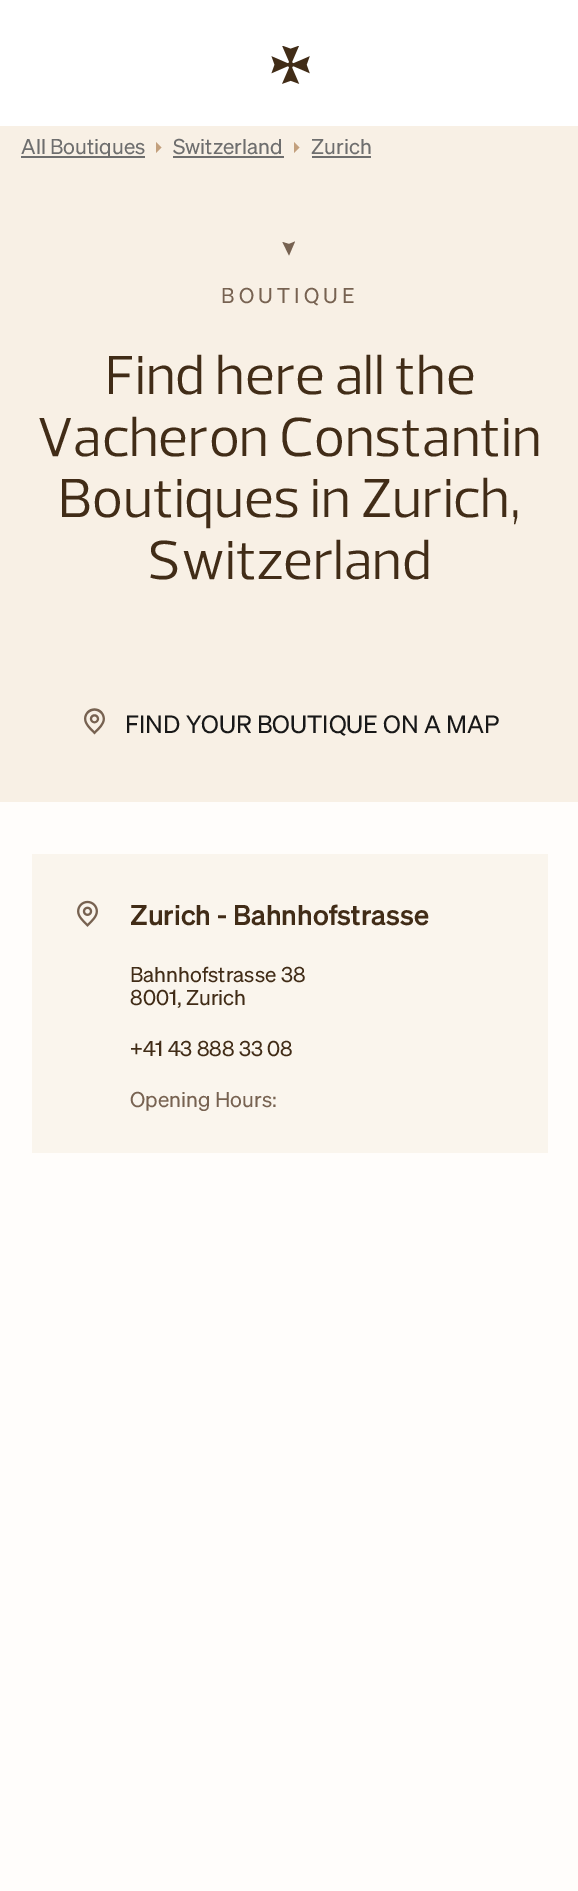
%!PS
<< /PageSize [578 1891] >> setpagedevice
/mt/moveto load def
/li/lineto load def
/cp/closepath load def
/fl/fill load def
/co { dup -16 bitshift 255 div exch dup -8 bitshift 255 and 255 div exch 255 and 255 div setrgbcolor } def
/fn { [ exch dup neg 0 0 3 -1 roll 0 0 ] selectfont } def
/tx { co fn moveto show } def
/bx { co rectfill } def
/im { 5 dict begin { /h /w /y /x /name } { exch def } forall
  gsave x y translate w h scale
  w h 8 [w 0 0 h 0 0] name (r) file false 3 colorimage grestore end } def
0 1891 translate 1 -1 scale
4 setmiterlimit
0 0 578 1891 16#FFFFFF bx
(media/1.raw) 271 46 39 38 im
0 802 578 1089 16#FFFDFB bx
0 126 578 676 16#F8F0E5 bx
21 156 124 2 16#6E6E6E bx
16#C3A07D co
156 153 mt 161.5 147.5 li 156 142 li cp fl
173 156 111 2 16#6E6E6E bx
16#C3A07D co
294 153 mt 299.5 147.5 li 294 142 li cp fl
312 156 59 2 16#6E6E6E bx
16#776251 co
289 255.5 mt 282.5 242 li 289 244 li 295 241.5 li cp fl
(media/2.raw) 84 708 21 27 im
32 854 516 299 16#FAF5ED bx
(media/3.raw) 77 900 21 27 im
(All Boutiques) 21 154 /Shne-Regular 21 16#6E6E6E tx
(Switzerland) 173 154 /Shne-Regular 21 16#6E6E6E tx
(Zurich) 311 154 /Shne-Regular 21 16#6E6E6E tx
16#776251 co
221 303 mt 4.25 0 (BOUTIQUE) ashow
(Find here all the) 105 394 /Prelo-Regular 56 16#412C17 tx
(Vacheron Constantin) 37 456 /Prelo-Regular 56 16#412C17 tx
(Boutiques in Zurich,) 58 517 /Prelo-Regular 56 16#412C17 tx
(Switzerland) 147 579 /Prelo-Regular 56 16#412C17 tx
(FIND YOUR BOUTIQUE ON A MAP) 125 733 /Shne-Regular 24.5 16#181818 tx
(Zurich - Bahnhofstrasse) 130 925 /Shne-Medium 28 16#412C17 tx
(Bahnhofstrasse 38) 130 982 /Shne-Regular 21 16#412C17 tx
(8001, Zurich) 130 1005 /Shne-Regular 21 16#412C17 tx
(+41 43 888 33 08) 130 1056 /Shne-Regular 21 16#412C17 tx
(Opening Hours:) 130 1107 /Shne-Regular 21 16#776251 tx
showpage
